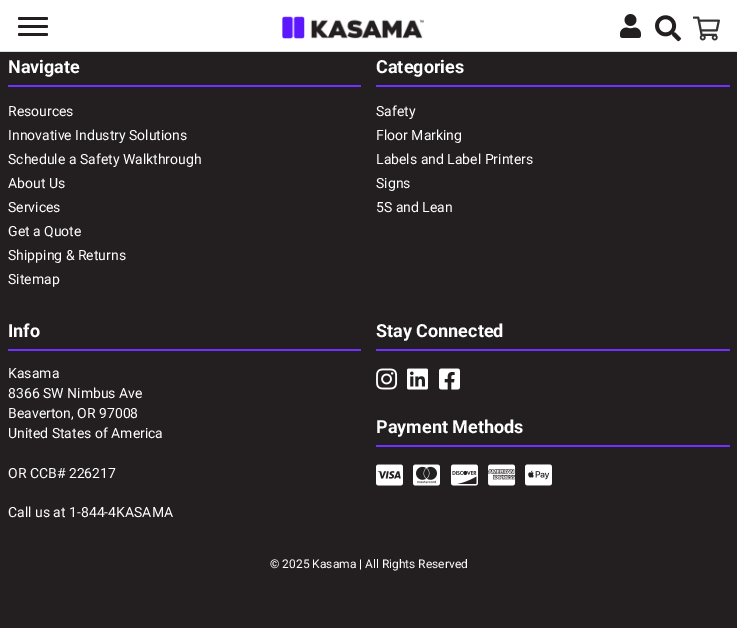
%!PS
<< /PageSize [737 628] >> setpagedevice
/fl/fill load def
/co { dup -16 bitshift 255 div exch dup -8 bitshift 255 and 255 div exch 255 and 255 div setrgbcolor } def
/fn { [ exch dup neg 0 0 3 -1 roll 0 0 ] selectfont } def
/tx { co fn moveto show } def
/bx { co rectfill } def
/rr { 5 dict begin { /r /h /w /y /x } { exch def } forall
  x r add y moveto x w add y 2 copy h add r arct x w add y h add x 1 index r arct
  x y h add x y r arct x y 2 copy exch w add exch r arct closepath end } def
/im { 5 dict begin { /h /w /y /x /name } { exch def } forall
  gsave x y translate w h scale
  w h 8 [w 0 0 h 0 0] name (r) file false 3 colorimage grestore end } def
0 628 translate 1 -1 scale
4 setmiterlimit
0 0 737 628 16#231F20 bx
0 0 737 51 16#FFFFFF bx
0 51 737 1 16#DDDDDD bx
16#231F20 co
18 17 30 3 1.5 rr fl
18 25 30 3 1.5 rr fl
18 33 30 3 1.5 rr fl
(media/1.raw) 620 14 21 24 im
(media/2.raw) 655 15 26 27 im
(media/3.raw) 693 16 27 25 im
(media/4.raw) 282 16 142 23 im
8 85 353 2 16#6E31FF bx
376 85 354 2 16#6E31FF bx
8 349 353 2 16#6E31FF bx
376 349 354 2 16#6E31FF bx
(media/5.raw) 376 368 22 22 im
(media/6.raw) 407 368 21 22 im
(media/7.raw) 439 368 21 22 im
376 445 354 2 16#6E31FF bx
(media/8.raw) 376 464 27 22 im
(media/9.raw) 413 464 27 22 im
(media/10.raw) 451 464 27 22 im
(media/11.raw) 488 464 28 22 im
(media/12.raw) 525 464 27 22 im
(Navigate) 8 73 /Roboto-Bold 18 16#FFFFFF tx
(Resources) 8 116 /Roboto-Regular 14 16#FFFFFF tx
(Innovative Industry Solutions) 8 140 /Roboto-Regular 14 16#FFFFFF tx
(Schedule a Safety Walkthrough) 8 164 /Roboto-Regular 14 16#FFFFFF tx
(About Us) 8 188 /Roboto-Regular 14 16#FFFFFF tx
(Services) 8 212 /Roboto-Regular 14 16#FFFFFF tx
(Get a Quote) 8 236 /Roboto-Regular 14 16#FFFFFF tx
(Shipping & Returns) 8 260 /Roboto-Regular 14 16#FFFFFF tx
(Sitemap) 8 284 /Roboto-Regular 14 16#FFFFFF tx
(Categories) 376 73 /Roboto-Bold 18 16#FFFFFF tx
(Safety) 376 116 /Roboto-Regular 14 16#FFFFFF tx
(Floor Marking) 376 140 /Roboto-Regular 14 16#FFFFFF tx
(Labels and Label Printers) 376 164 /Roboto-Regular 14 16#FFFFFF tx
(Signs) 376 188 /Roboto-Regular 14 16#FFFFFF tx
(5S and Lean) 376 212 /Roboto-Regular 14 16#FFFFFF tx
(Info) 8 337 /Roboto-Bold 18 16#FFFFFF tx
(Kasama) 8 378 /Roboto-Regular 14 16#FFFFFF tx
(8366 SW Nimbus Ave) 8 398 /Roboto-Regular 14 16#FFFFFF tx
(Beaverton, OR 97008) 8 418 /Roboto-Regular 14 16#FFFFFF tx
(United States of America) 8 438 /Roboto-Regular 14 16#FFFFFF tx
(OR CCB# 226217) 8 478 /Roboto-Regular 14 16#FFFFFF tx
(Call us at 1-844-4KASAMA) 8 517 /Roboto-Regular 14 16#FFFFFF tx
(Stay Connected) 376 337 /Roboto-Bold 18 16#FFFFFF tx
(Payment Methods) 376 433 /Roboto-Bold 18 16#FFFFFF tx
(© 2025 Kasama | All Rights Reserved) 270 568 /Roboto-Regular 12 16#FFFFFF tx
showpage
